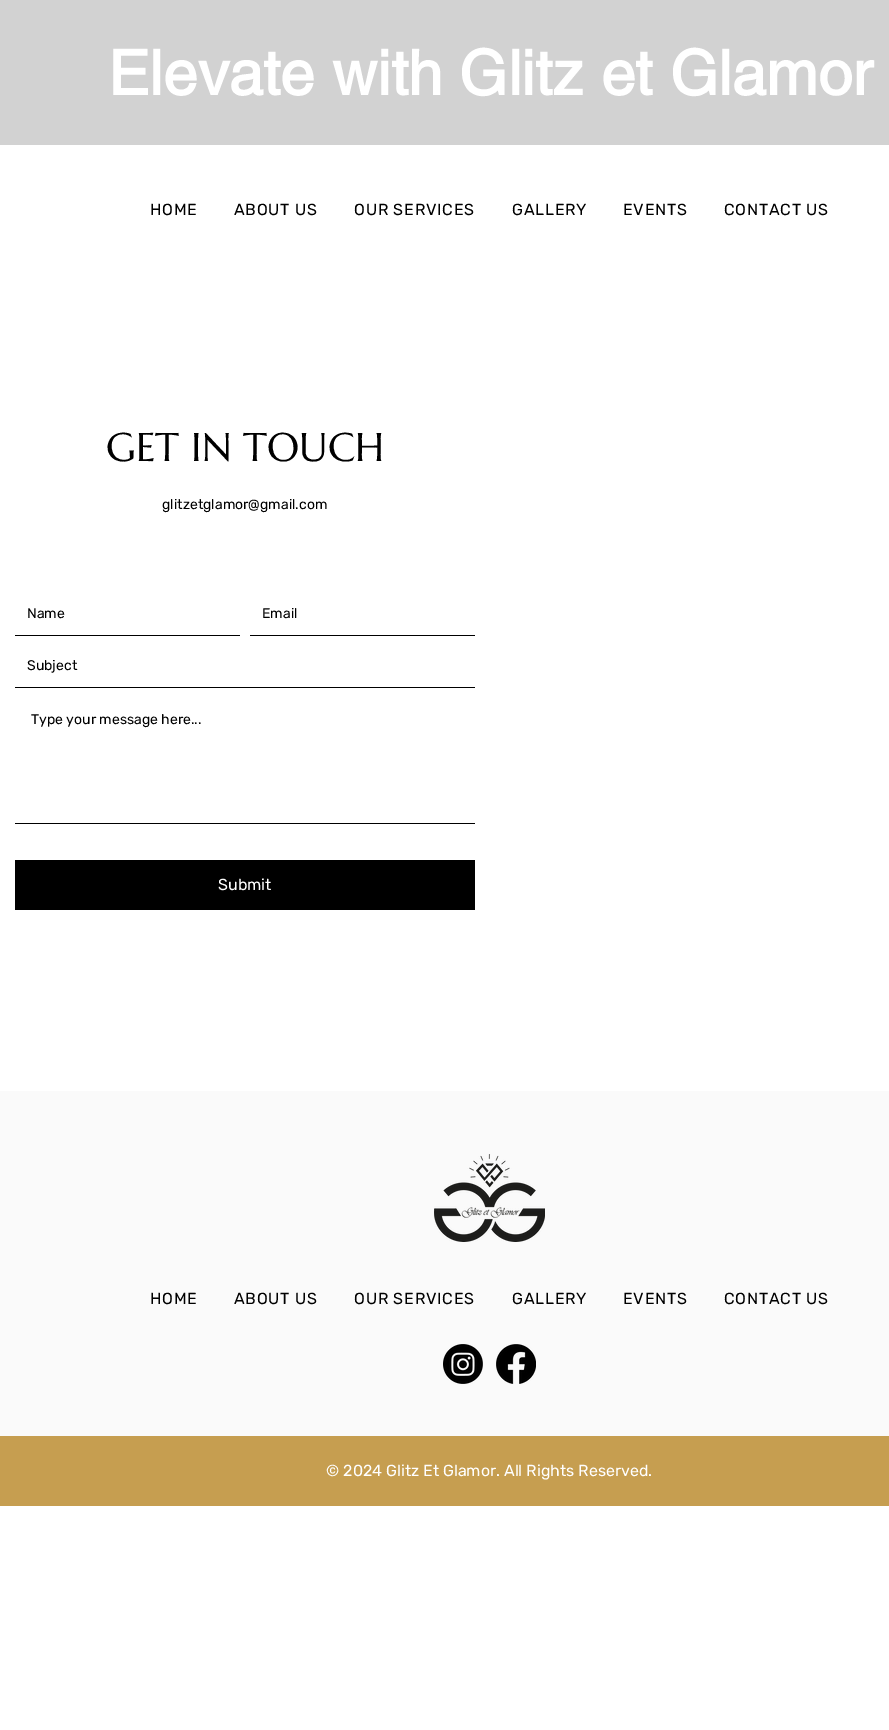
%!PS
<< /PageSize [889 1730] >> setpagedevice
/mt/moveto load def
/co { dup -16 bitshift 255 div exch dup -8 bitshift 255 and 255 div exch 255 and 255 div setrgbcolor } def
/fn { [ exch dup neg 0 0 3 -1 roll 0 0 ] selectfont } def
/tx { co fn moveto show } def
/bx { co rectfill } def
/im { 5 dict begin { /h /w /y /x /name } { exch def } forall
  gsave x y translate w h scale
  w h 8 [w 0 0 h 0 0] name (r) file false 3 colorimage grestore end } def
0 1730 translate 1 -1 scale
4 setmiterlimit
0 0 889 1730 16#FFFFFF bx
0 0 889 145 16#D2D2D2 bx
15 635 225 1 16#000000 bx
250 635 225 1 16#000000 bx
15 687 460 1 16#000000 bx
15 823 460 1 16#000000 bx
15 860 460 50 16#000000 bx
0 1091 889 345 16#FAFAFA bx
(media/1.raw) 434 1154 111 88 im
(media/2.raw) 443 1344 40 40 im
(media/3.raw) 496 1344 40 40 im
0 1436 889 70 16#C69E50 bx
(Elevate with Glitz et Glamor) 108 95 /helvetica-Bold 62 16#FFFFFF tx
/Rubik-Regular 16 fn
16#000000 co
150 215 mt .75 0 (HOME) ashow
234 215 mt .75 0 (ABOUT US) ashow
354 215 mt .75 0 (OUR SERVICES) ashow
512 215 mt .75 0 (GALLERY) ashow
623 215 mt .75 0 (EVENTS) ashow
724 215 mt .75 0 (CONTACT US) ashow
(GET IN TOUCH) 106 461 /Marcellus-Regular 40 16#000000 tx
(glitzetglamor@gmail.com) 162 509 /Rubik-Regular 14 16#000000 tx
(Name) 27 618 /Rubik-Regular 14 16#000000 tx
(Email) 262 618 /Rubik-Regular 14 16#000000 tx
(Subject) 27 670 /Rubik-Regular 14 16#000000 tx
(Type your message here...) 31 724 /Rubik-Regular 14 16#000000 tx
(Submit) 218 890 /Rubik-Regular 16 16#FFFFFF tx
16#000000 co
150 1304 mt .75 0 (HOME) ashow
234 1304 mt .75 0 (ABOUT US) ashow
354 1304 mt .75 0 (OUR SERVICES) ashow
512 1304 mt .75 0 (GALLERY) ashow
623 1304 mt .75 0 (EVENTS) ashow
724 1304 mt .75 0 (CONTACT US) ashow
(© 2024 Glitz Et Glamor. All Rights Reserved.) 326 1476 /Rubik-Regular 16 16#FFFFFF tx
showpage
